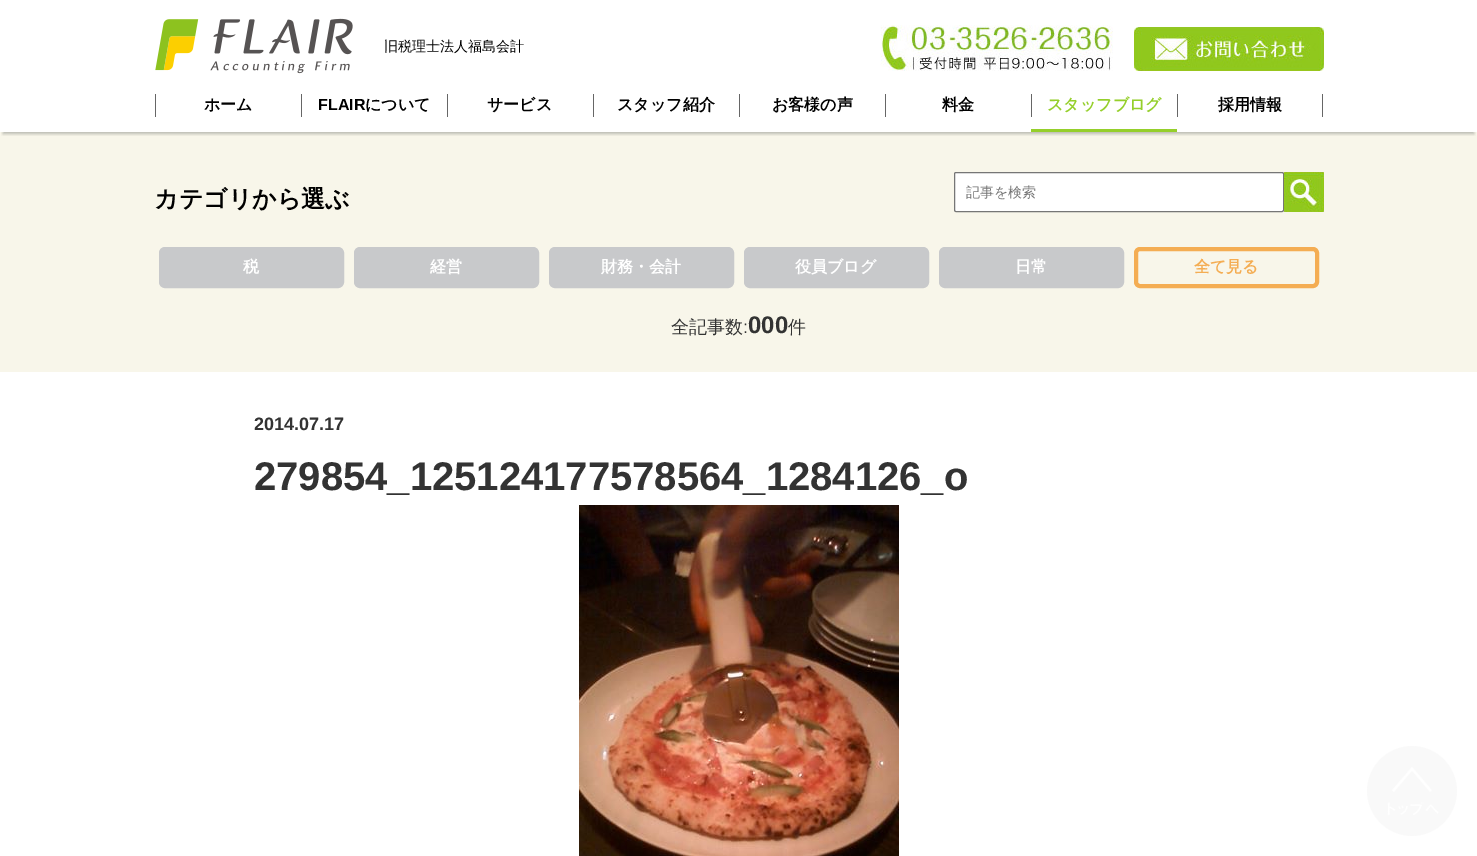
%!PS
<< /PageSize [1477 856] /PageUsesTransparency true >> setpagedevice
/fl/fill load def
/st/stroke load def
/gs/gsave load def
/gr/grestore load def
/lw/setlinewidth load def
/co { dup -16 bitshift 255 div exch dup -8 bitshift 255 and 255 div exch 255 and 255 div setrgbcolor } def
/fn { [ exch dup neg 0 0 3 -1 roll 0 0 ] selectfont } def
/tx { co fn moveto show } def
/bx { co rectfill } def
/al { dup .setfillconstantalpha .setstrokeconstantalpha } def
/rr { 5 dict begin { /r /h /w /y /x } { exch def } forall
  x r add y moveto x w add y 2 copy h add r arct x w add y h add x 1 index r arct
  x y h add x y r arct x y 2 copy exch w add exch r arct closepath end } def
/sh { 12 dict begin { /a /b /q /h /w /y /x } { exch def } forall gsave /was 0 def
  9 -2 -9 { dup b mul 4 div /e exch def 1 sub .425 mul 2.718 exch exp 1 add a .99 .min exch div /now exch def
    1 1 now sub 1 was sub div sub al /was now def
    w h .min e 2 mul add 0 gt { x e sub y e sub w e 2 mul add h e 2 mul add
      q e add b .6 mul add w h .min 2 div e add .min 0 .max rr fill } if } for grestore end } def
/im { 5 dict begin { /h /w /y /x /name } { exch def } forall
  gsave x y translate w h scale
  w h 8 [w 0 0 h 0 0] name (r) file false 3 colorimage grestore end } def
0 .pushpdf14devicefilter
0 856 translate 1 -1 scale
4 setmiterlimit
0 0 1477 856 16#FFFFFF bx
0 132 1477 240 16#F8F6EA bx
gs
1 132 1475 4 rectclip
16#666666 co
3 8 1471 126 0 1.5 .4 sh
gr
(media/1.raw) 155 18 198 56 im
(media/2.raw) 880 25 233 46 im
(media/3.raw) 1134 27 190 44 im
155 94 1 23 16#666666 bx
301 94 1 23 16#666666 bx
447 94 1 23 16#666666 bx
593 94 1 23 16#666666 bx
739 94 1 23 16#666666 bx
885 94 1 23 16#666666 bx
1031 129 146 3 16#95CF2B bx
1031 94 1 23 16#666666 bx
1322 94 1 23 16#666666 bx
1177 94 1 23 16#666666 bx
16#FFFFFF co
954.5 172.5 329 39 1.5 rr gs fl gr
16#767676 co
st
(media/4.raw) 1284 172 40 40 im
16#C8C9CB co
161 249 181 37 4 rr gs fl gr
4 lw
st
356 249 181 37 4 rr gs fl gr
st
551 249 181 37 4 rr gs fl gr
st
746 249 181 37 4 rr gs fl gr
st
941 249 181 37 4 rr gs fl gr
st
16#F4AD53 co
1136 249 181 37 4 rr st
(media/5.raw) 579 505 320 351 im
(media/6.raw) 1367 746 90 90 im
(旧税理士法人福島会計) 384 51 /WenQuanYiZenHei-Medium 14 16#000000 tx
(ホーム) 204 110 /WenQuanYiZenHei-Bold 16 16#000000 tx
(FLAIR) 318 110 /LiberationSans-Bold 16 16#000000 tx
(について) 365 110 /WenQuanYiZenHei-Bold 16 16#000000 tx
(サービス) 487 110 /WenQuanYiZenHei-Bold 16 16#000000 tx
(スタッフ紹介) 617 110 /WenQuanYiZenHei-Bold 16 16#000000 tx
(お客様の声) 772 110 /WenQuanYiZenHei-Bold 16 16#000000 tx
(料金) 942 110 /WenQuanYiZenHei-Bold 16 16#000000 tx
(スタッフブログ) 1047 110 /WenQuanYiZenHei-Bold 16 16#95CF2B tx
(採用情報) 1218 110 /WenQuanYiZenHei-Bold 16 16#000000 tx
(カテゴリから選ぶ) 154 207 /WenQuanYiZenHei-Bold 24 16#000000 tx
gs
966 184 314 18 rectclip
(記事を検索) 966 197 /WenQuanYiZenHei-Medium 14 16#757575 tx
gr
(税) 243 272 /WenQuanYiZenHei-Bold 16 16#FFFFFF tx
(経営) 430 272 /WenQuanYiZenHei-Bold 16 16#FFFFFF tx
(財務・会計) 601 272 /WenQuanYiZenHei-Bold 16 16#FFFFFF tx
(役員ブログ) 795 272 /WenQuanYiZenHei-Bold 16 16#FFFFFF tx
(日常) 1015 272 /WenQuanYiZenHei-Bold 16 16#FFFFFF tx
(全て見る) 1194 272 /WenQuanYiZenHei-Bold 16 16#F4AD53 tx
(全記事数) 671 333 /WenQuanYiZenHei-Medium 18 16#333333 tx
(:) 743 333 /LiberationSans-Regular 18 16#333333 tx
(000) 748 333 /LiberationSans-Bold 24 16#333333 tx
(件) 788 333 /WenQuanYiZenHei-Medium 18 16#333333 tx
(2014.07.17) 254 430 /LiberationSans-Bold 18 16#333333 tx
(279854_125124177578564_1284126_o) 254 490 /LiberationSans-Bold 40 16#333333 tx
.poppdf14devicefilter showpage
